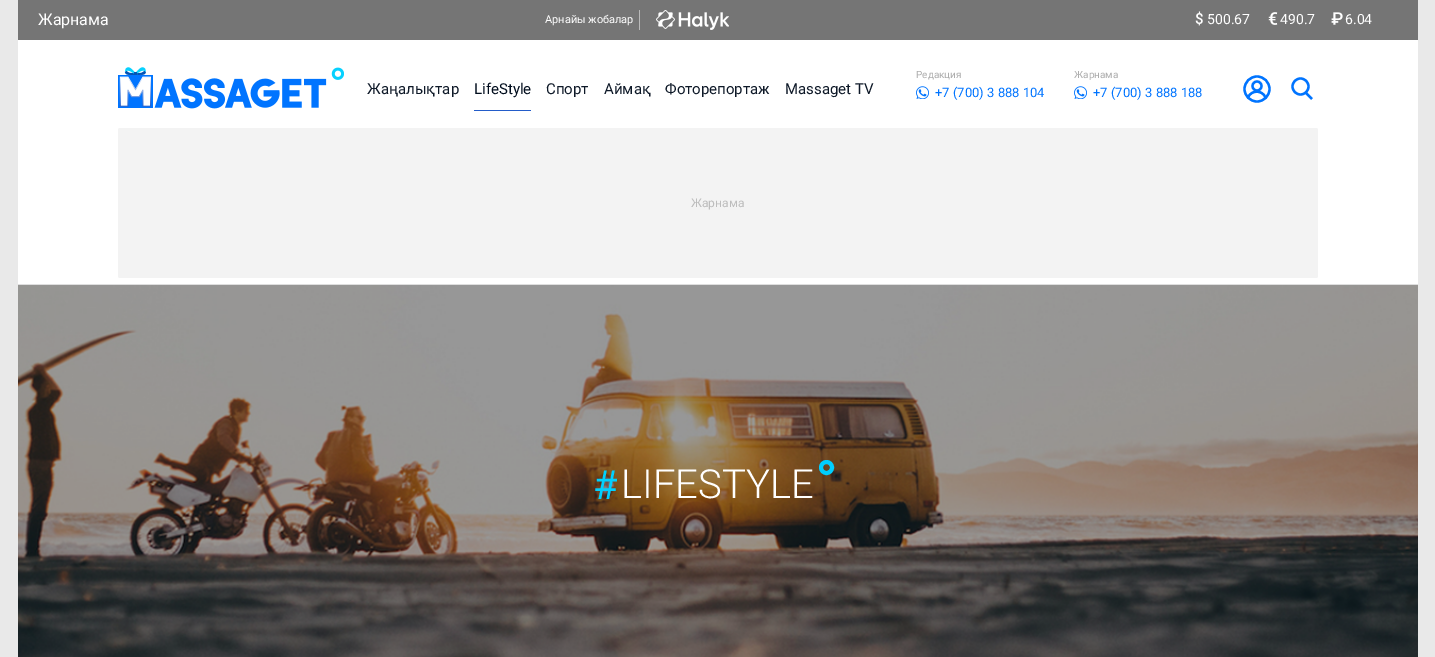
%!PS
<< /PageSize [1435 657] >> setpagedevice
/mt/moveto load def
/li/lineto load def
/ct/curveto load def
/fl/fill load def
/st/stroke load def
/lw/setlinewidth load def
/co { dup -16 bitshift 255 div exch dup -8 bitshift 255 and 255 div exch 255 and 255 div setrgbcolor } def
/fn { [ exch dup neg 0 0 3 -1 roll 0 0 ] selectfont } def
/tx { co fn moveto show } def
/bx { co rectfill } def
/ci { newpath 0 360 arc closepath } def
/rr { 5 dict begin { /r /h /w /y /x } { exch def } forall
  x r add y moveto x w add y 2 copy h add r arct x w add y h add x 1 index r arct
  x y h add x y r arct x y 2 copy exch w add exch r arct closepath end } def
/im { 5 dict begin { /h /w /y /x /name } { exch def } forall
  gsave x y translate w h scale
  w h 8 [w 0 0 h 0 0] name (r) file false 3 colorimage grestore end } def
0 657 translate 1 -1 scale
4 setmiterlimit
0 0 1435 657 16#E9E9E9 bx
18 40 1400 244 16#FFFFFF bx
18 284 1400 1 16#DEDEDE bx
18 0 1400 40 16#757575 bx
639 10 1 20 16#BABABA bx
(media/1.raw) 656 10 73 20 im
(media/2.raw) 1195 11 8 15 im
(media/3.raw) 1268 12 10 13 im
(media/4.raw) 1331 12 12 13 im
(media/5.raw) 118 67 226 42 im
474 110 57 1 16#235CC9 bx
(media/6.raw) 916 86 13 13 im
(media/6.raw) 1074 86 13 13 im
16#0074FF co
2.3 lw
1257 89 12.5 ci st
1265.5 98 mt 1263 89.5 1250.5 89.5 1248 98 ct st
1257 86 4.5 ci st
1300.5 86.5 8 ci st
1305 92 mt 1312 99 li st
16#F3F3F3 co
118 128 1200 150 2 rr fl
18 285 1400 372 16#000000 bx
(media/7.raw) 18 285 1400 372 im
16#00CFFF co
4 lw
826.5 467.5 5.5 ci st
(Жарнама) 38 25 /Roboto-Regular 16 16#FFFFFF tx
(Арнайы жобалар) 545 23 /Roboto-Regular 11 16#FFFFFF tx
(500.67) 1207 24 /Roboto-Regular 14 16#FFFFFF tx
(490.7) 1280 24 /Roboto-Regular 14 16#FFFFFF tx
(6.04) 1345 24 /Roboto-Regular 14 16#FFFFFF tx
(Жаңалықтар) 367 94 /Roboto-Regular 15 16#0E1928 tx
(LifeStyle) 474 94 /Roboto-Regular 15 16#010D1D tx
(Спорт) 546 94 /Roboto-Regular 15 16#0E1928 tx
(Аймақ) 604 94 /Roboto-Regular 15 16#0E1928 tx
(Фоторепортаж) 665 94 /Roboto-Regular 15 16#0E1928 tx
(Massaget TV) 785 94 /Roboto-Regular 15 16#0E1928 tx
(Редакция) 916 78 /Roboto-Regular 10 16#ADADAD tx
(+7 \(700\) 3 888 104) 935 97 /Roboto-Regular 13 16#0074FF tx
(Жарнама) 1074 78 /Roboto-Regular 10 16#ADADAD tx
(+7 \(700\) 3 888 188) 1093 97 /Roboto-Regular 13 16#0074FF tx
(Жарнама) 691 207 /Roboto-Regular 12 16#BDBDBD tx
(#) 593 499 /Roboto-Regular 40 16#00D1FF tx
(LIFESTYLE) 621 498 /Roboto-Light 40 16#FFFFFF tx
showpage
